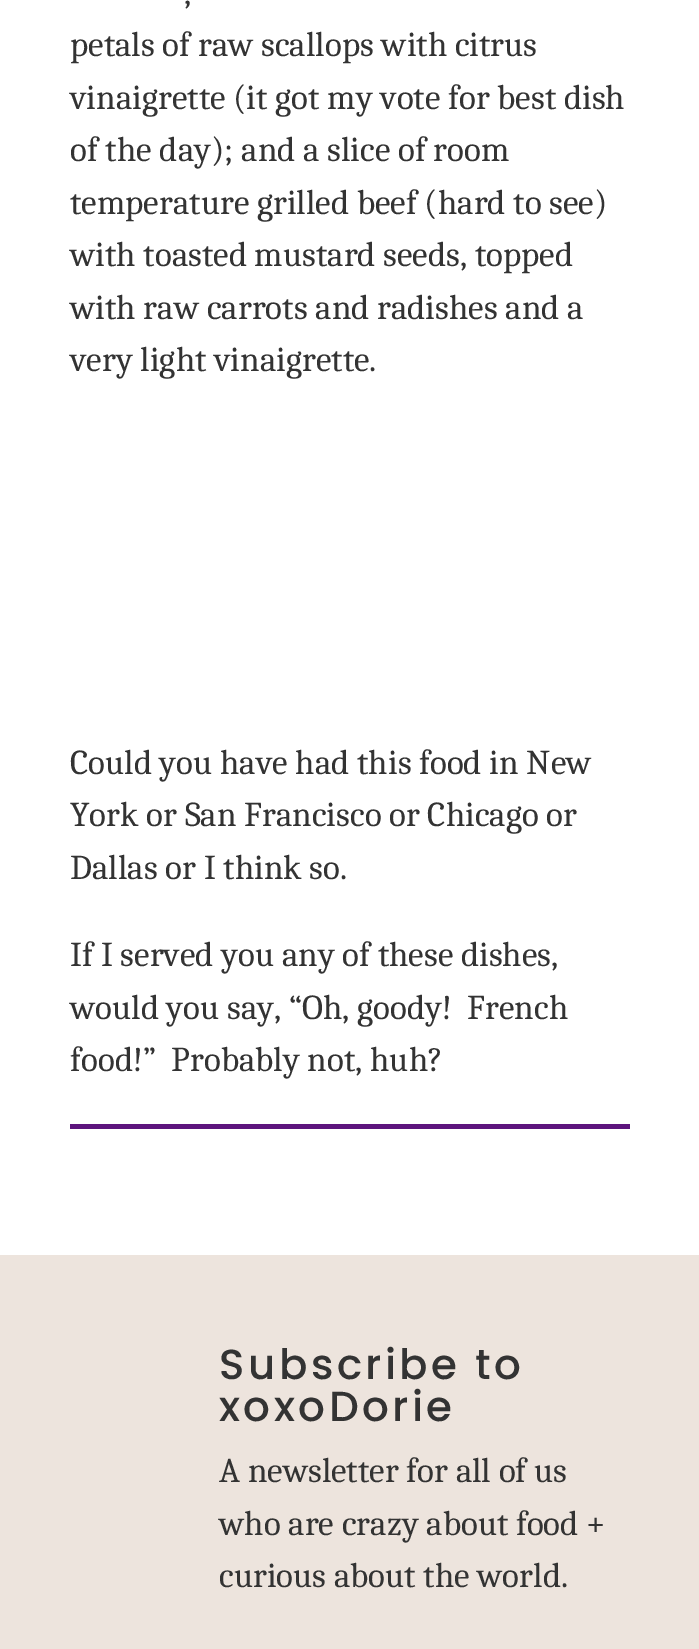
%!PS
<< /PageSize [699 1649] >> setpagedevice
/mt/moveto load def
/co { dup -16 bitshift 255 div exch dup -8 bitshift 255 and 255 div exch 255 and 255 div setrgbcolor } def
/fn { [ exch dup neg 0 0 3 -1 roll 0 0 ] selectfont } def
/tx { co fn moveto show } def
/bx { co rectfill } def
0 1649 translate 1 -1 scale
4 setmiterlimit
0 0 699 1649 16#FFFFFF bx
70 1124 560 5 16#5D147D bx
0 1255 699 394 16#EDE4DD bx
(,) 184 4 /Caladea-Regular 35 16#333333 tx
(petals of raw scallops with citrus) 70 56 /Caladea-Regular 35 16#333333 tx
(vinaigrette \(it got my vote for best dish) 70 109 /Caladea-Regular 35 16#333333 tx
(of the day\); and a slice of room) 70 161 /Caladea-Regular 35 16#333333 tx
(temperature grilled beef \(hard to see\)) 70 214 /Caladea-Regular 35 16#333333 tx
(with toasted mustard seeds, topped) 70 266 /Caladea-Regular 35 16#333333 tx
(with raw carrots and radishes and a) 70 319 /Caladea-Regular 35 16#333333 tx
(very light vinaigrette.) 70 371 /Caladea-Regular 35 16#333333 tx
(Could you have had this food in New) 70 774 /Caladea-Regular 35 16#333333 tx
(York or San Francisco or Chicago or) 70 826 /Caladea-Regular 35 16#333333 tx
(Dallas or I think so.) 70 879 /Caladea-Regular 35 16#333333 tx
(If I served you any of these dishes,) 70 966 /Caladea-Regular 35 16#333333 tx
(would you say, “Oh, goody!  French) 70 1019 /Caladea-Regular 35 16#333333 tx
(food!”  Probably not, huh?) 70 1071 /Caladea-Regular 35 16#333333 tx
/Poppins-Medium 42 fn
219 1379 mt 3.5 0 (Subscribe to) ashow
219 1421 mt 3.5 0 (xoxoDorie) ashow
(A newsletter for all of us) 219 1482 /Caladea-Regular 35 16#333333 tx
(who are crazy about food +) 219 1535 /Caladea-Regular 35 16#333333 tx
(curious about the world.) 219 1587 /Caladea-Regular 35 16#333333 tx
showpage
